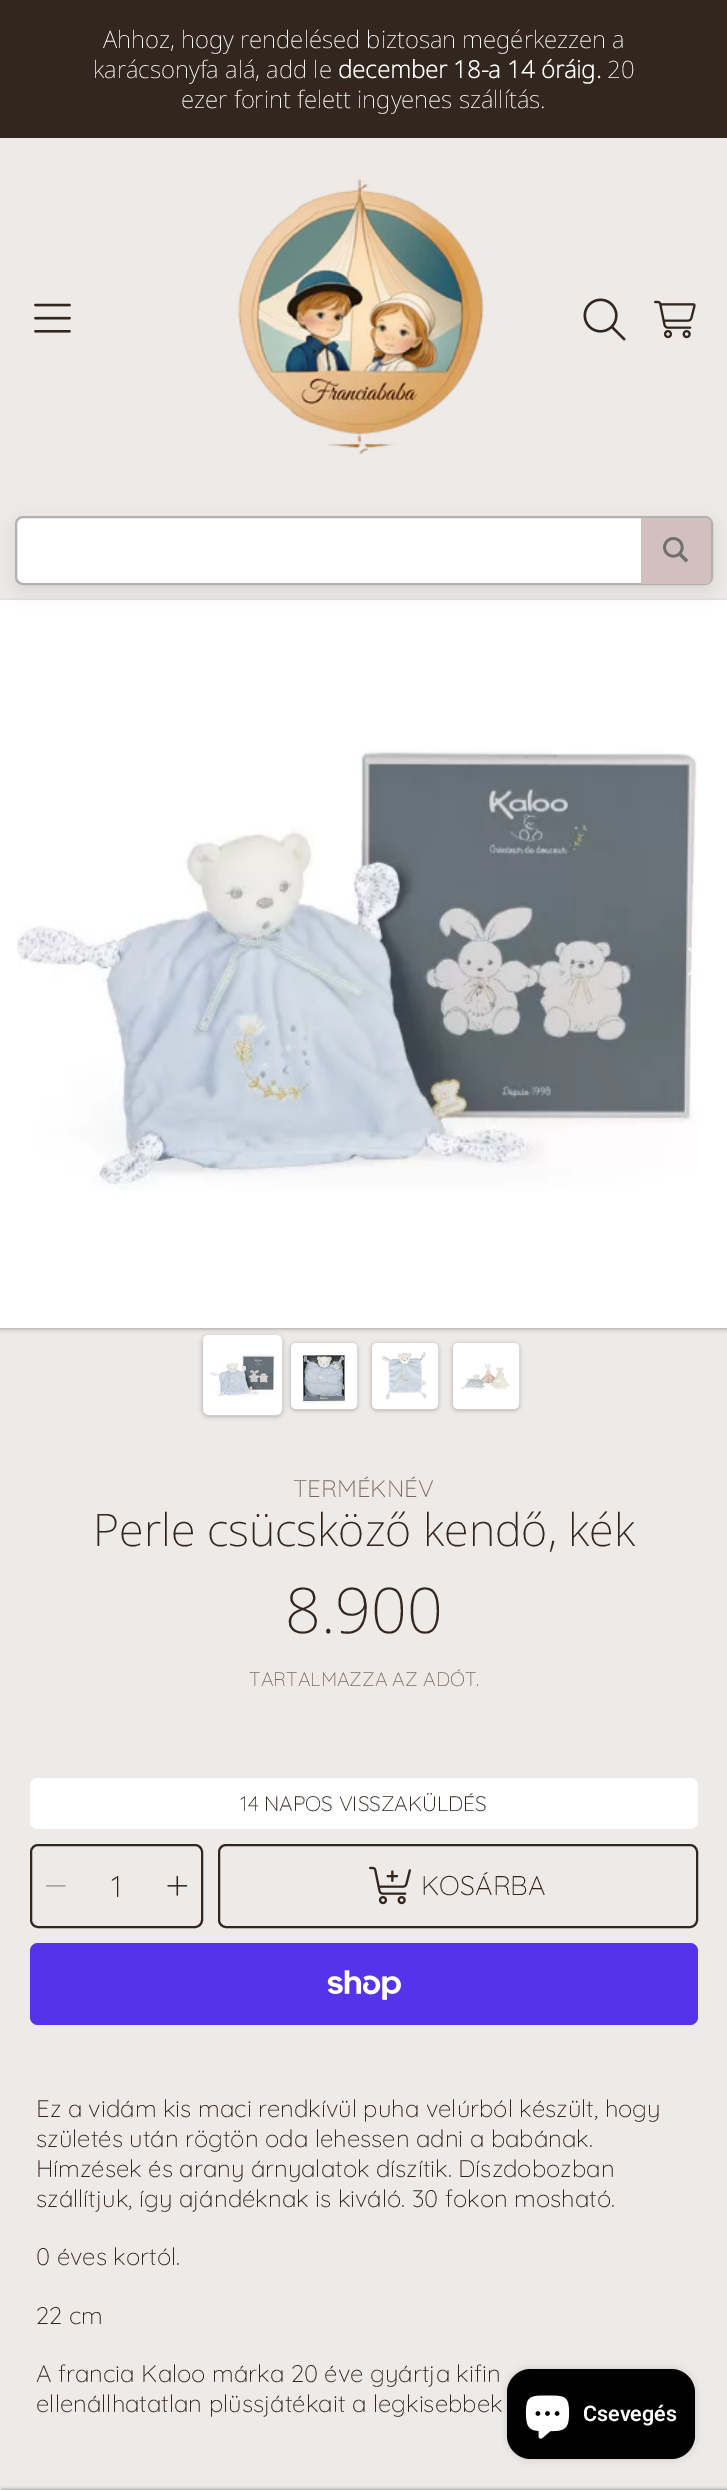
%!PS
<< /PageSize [727 2490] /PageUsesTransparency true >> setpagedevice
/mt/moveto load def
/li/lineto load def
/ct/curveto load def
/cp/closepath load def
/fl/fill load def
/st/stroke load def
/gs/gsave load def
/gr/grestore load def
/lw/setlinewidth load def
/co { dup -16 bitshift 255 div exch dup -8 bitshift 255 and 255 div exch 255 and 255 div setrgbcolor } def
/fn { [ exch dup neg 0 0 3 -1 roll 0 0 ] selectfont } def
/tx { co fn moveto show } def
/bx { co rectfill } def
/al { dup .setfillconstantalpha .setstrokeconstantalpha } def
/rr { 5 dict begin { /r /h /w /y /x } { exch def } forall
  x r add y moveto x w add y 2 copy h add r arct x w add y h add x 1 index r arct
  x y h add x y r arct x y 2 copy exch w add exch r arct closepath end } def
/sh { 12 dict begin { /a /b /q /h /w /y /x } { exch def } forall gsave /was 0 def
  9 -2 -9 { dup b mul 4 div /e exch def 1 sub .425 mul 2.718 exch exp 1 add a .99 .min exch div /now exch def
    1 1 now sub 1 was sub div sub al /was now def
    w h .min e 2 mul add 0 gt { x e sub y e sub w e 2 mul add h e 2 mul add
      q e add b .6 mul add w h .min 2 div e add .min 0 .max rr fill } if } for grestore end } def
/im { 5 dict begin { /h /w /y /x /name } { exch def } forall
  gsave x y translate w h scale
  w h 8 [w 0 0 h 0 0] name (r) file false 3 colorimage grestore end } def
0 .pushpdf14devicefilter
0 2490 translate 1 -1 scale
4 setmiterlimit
0 0 727 2490 16#EEEAE8 bx
0 0 727 138 16#32261E bx
(media/1.raw) 34 303 37 30 im
(media/2.raw) 238 178 246 277 im
(media/3.raw) 583 298 43 43 im
(media/4.raw) 654 300 42 39 im
16#000000 co
0 602 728 727 0 2 .31 sh
0 600 727 728 16#FFFFFF bx
16#000000 co
15 522 698 69 8 9 .08 sh
16#FFFFFF co
16 517 696 67 7 rr gs fl gr
16#B0B0B0 co
2 lw
st
16#D2BFBF co
641 518 mt 705 518 li 708.5 518 711 520.5 711 524 ct 711 578 li 711 581.5 708.5 584 705 584 ct 641 584 li cp fl
(media/5.raw) 663 537 26 26 im
(media/6.raw) 17 750 680 441 im
0.75 al
16#FFFFFF co
25 960 mt 39 974 li 37.5 975.5 li 23.5 961.5 li cp 23.5 961.5 mt 37.5 947.5 li 39 949 li 25 963 li cp fl
702 960 mt 688 974 li 689.5 975.5 li 703.5 961.5 li cp 703.5 961.5 mt 689.5 947.5 li 688 949 li 702 963 li cp fl
1 al
16#000000 co
203 1337 79 79 6 2.5 .31 sh
16#FFFFFF co
205.5 1337.5 74 75 3.5 rr gs fl gr
5 lw
st
(media/7.raw) 210 1355 65 42 im
16#000000 co
291 1344 66 66 5 2 .31 sh
16#FFFFFF co
293.5 1345.5 61 61 2.5 rr gs fl gr
st
(media/8.raw) 302 1355 43 48 im
16#000000 co
372 1344 66 66 5 2 .31 sh
16#FFFFFF co
374.5 1345.5 61 61 2.5 rr gs fl gr
st
(media/9.raw) 381 1352 46 48 im
16#000000 co
453 1344 66 66 5 2 .31 sh
16#FFFFFF co
455.5 1345.5 61 61 2.5 rr gs fl gr
st
(media/10.raw) 461 1363 50 27 im
30 1778 668 51 8 rr fl
16#32261E co
2 lw
31 1845 171 82 7 rr st
(media/11.raw) 45 1885 21 2 im
(media/12.raw) 167 1875 21 21 im
219 1845 478 82 7 rr st
(media/13.raw) 369 1866 42 39 im
16#5433EB co
30 1943 668 82 8 rr fl
(media/14.raw) 327 1970 74 30 im
16#000000 co
2 2490 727 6 0 2 .5 sh
507 2369 188 90 24 4 .15 sh
507 2369 188 90 24 rr fl
(media/15.raw) 525 2395 45 44 im
(Ahhoz, hogy rendelésed biztosan megérkezzen a) 103 48 /NotoSans-ExtraLight 24 16#FFFFFF tx
(karácsonyfa alá, add le) 93 78 /NotoSans-ExtraLight 24 16#FFFFFF tx
(december 18-a 14 óráig.) 338 78 /NotoSans-Bold 24 16#FFFFFF tx
(20) 607 78 /NotoSans-ExtraLight 24 16#FFFFFF tx
(ezer forint felett ingyenes szállítás.) 181 108 /NotoSans-ExtraLight 24 16#FFFFFF tx
(TERMÉKNÉV) 293 1497 /Quicksand-Light 24 16#78675E tx
(Perle csücsköző kendő, kék) 93 1546 /NotoSans-ExtraLight 45 16#32261E tx
(8.900) 285 1633 /NotoSans-ExtraLight 63 16#32261E tx
(TARTALMAZZA AZ ADÓT.) 249 1686 /Quicksand-Light 19.5 16#78675E tx
(14 NAPOS VISSZAKÜLDÉS) 240 1811 /Quicksand-Light 21 16#32261E tx
(1) 111 1897 /Quicksand-Light 30 16#32261E tx
(KOSÁRBA) 421 1895 /Quicksand-Light 27 16#32261E tx
(Ez a vidám kis maci rendkívül puha velúrból készült, hogy) 36 2117 /Quicksand-Light 24 16#32261E tx
(születés után rögtön oda lehessen adni a babának.) 36 2147 /Quicksand-Light 24 16#32261E tx
(Hímzések és arany árnyalatok díszítik. Díszdobozban) 36 2177 /Quicksand-Light 24 16#32261E tx
(szállítjuk, így ajándéknak is kiváló. 30 fokon mosható.) 36 2207 /Quicksand-Light 24 16#32261E tx
(0 éves kortól.) 36 2265 /Quicksand-Light 24 16#32261E tx
(22 cm) 36 2324 /Quicksand-Light 24 16#32261E tx
(A francia Kaloo márka 20 éve gyártja kifin) 36 2382 /Quicksand-Light 24 16#32261E tx
(ellenállhatatlan plüssjátékait a legkisebbek) 36 2412 /Quicksand-Light 24 16#32261E tx
(Csevegés) 583 2421 /Roboto-SemiBold 21.5 16#FFFFFF tx
.poppdf14devicefilter showpage
